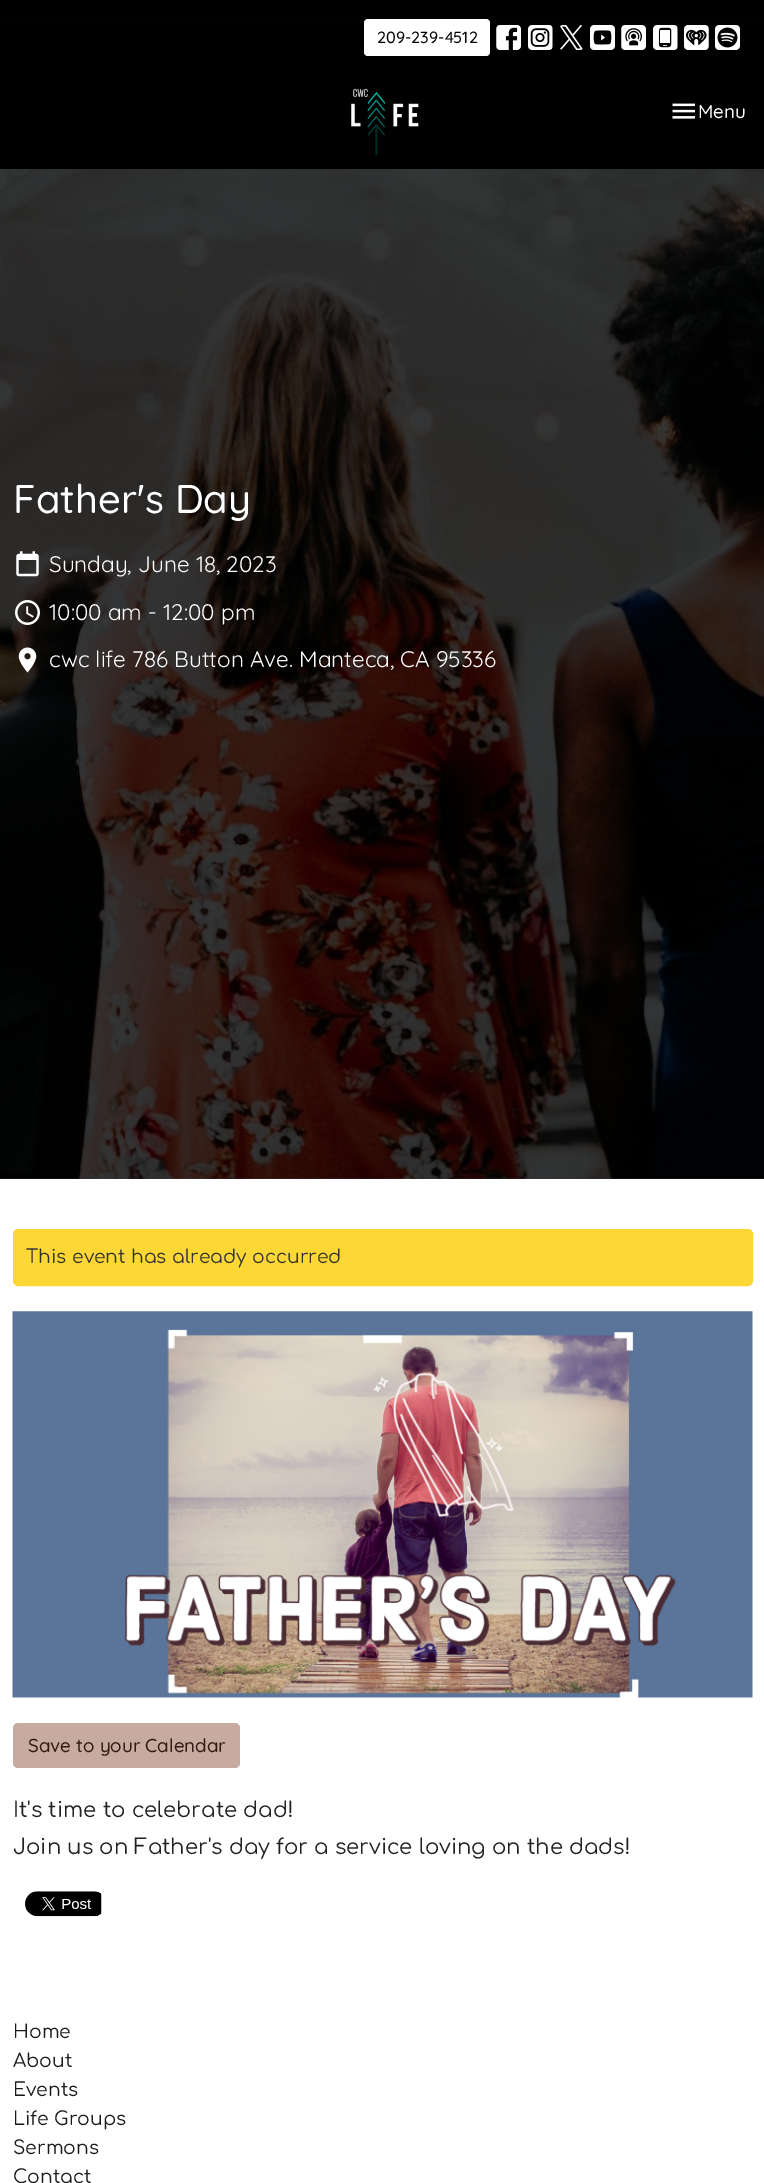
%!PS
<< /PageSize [764 2183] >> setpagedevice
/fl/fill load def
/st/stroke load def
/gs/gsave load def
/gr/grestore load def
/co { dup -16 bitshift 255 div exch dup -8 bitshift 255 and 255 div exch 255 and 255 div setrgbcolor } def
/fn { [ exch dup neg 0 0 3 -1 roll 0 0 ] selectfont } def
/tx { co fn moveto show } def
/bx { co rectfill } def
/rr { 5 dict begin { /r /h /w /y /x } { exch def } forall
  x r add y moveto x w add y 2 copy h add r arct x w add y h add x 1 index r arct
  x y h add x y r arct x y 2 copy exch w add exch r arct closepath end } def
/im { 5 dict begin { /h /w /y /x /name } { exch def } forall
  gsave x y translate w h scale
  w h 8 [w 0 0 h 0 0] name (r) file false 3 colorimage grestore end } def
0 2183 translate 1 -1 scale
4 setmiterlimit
0 0 764 2183 16#FFFFFF bx
(media/11.raw) 0 0 764 1179 im
0 23 764 146 16#000000 bx
16#FFFFFF co
364 19 126 37 4 rr fl
(media/1.raw) 496 25 25 25 im
(media/2.raw) 528 25 25 25 im
(media/3.raw) 560 25 23 25 im
(media/4.raw) 590 25 25 25 im
(media/5.raw) 621 25 25 25 im
(media/6.raw) 653 25 25 25 im
(media/7.raw) 684 25 25 25 im
(media/8.raw) 715 25 25 25 im
(media/9.raw) 351 88 68 67 im
(media/10.raw) 672 103 23 16 im
(media/12.raw) 16 551 23 26 im
(media/13.raw) 15 600 25 25 im
(media/14.raw) 18 647 19 26 im
16#FDD835 co
13.5 1229.5 739 56 4.5 rr gs fl gr
st
(media/15.raw) 12 1311 741 387 im
16#C7ABA1 co
13 1723 227 45 5 rr fl
(media/16.raw) 25 1891 77 26 im
(209-239-4512) 377 43 /Quicksand-Medium 16.25 16#000000 tx
(Menu) 698 118 /Quicksand-Medium 18.75 16#FFFFFF tx
(Father's Day) 13 513 /Quicksand-Medium 40 16#FFFFFF tx
(Sunday, June 18, 2023) 49 572 /Quicksand-Regular 22.5 16#FFFFFF tx
(10:00 am - 12:00 pm) 49 620 /Quicksand-Regular 22.5 16#FFFFFF tx
(cwc life 786 Button Ave. Manteca, CA 95336) 49 667 /Quicksand-Regular 22.5 16#FFFFFF tx
(This event has already occurred) 26 1263 /Comfortaa-Regular 18.75 16#333333 tx
(Save to your Calendar) 28 1752 /Quicksand-Medium 18.75 16#301C11 tx
(It's time to celebrate dad!) 13 1817 /Comfortaa-Regular 21.25 16#222222 tx
(Join us on Father's day for a service loving on the dads!) 13 1854 /Comfortaa-Regular 21.25 16#222222 tx
(Home) 13 2038 /Comfortaa-Regular 18.75 16#1A1A1A tx
(About) 13 2067 /Comfortaa-Regular 18.75 16#1A1A1A tx
(Events) 13 2096 /Comfortaa-Regular 18.75 16#1A1A1A tx
(Life Groups) 13 2125 /Comfortaa-Regular 18.75 16#1A1A1A tx
(Sermons) 13 2154 /Comfortaa-Regular 18.75 16#1A1A1A tx
(Contact) 13 2183 /Comfortaa-Regular 18.75 16#1A1A1A tx
showpage
